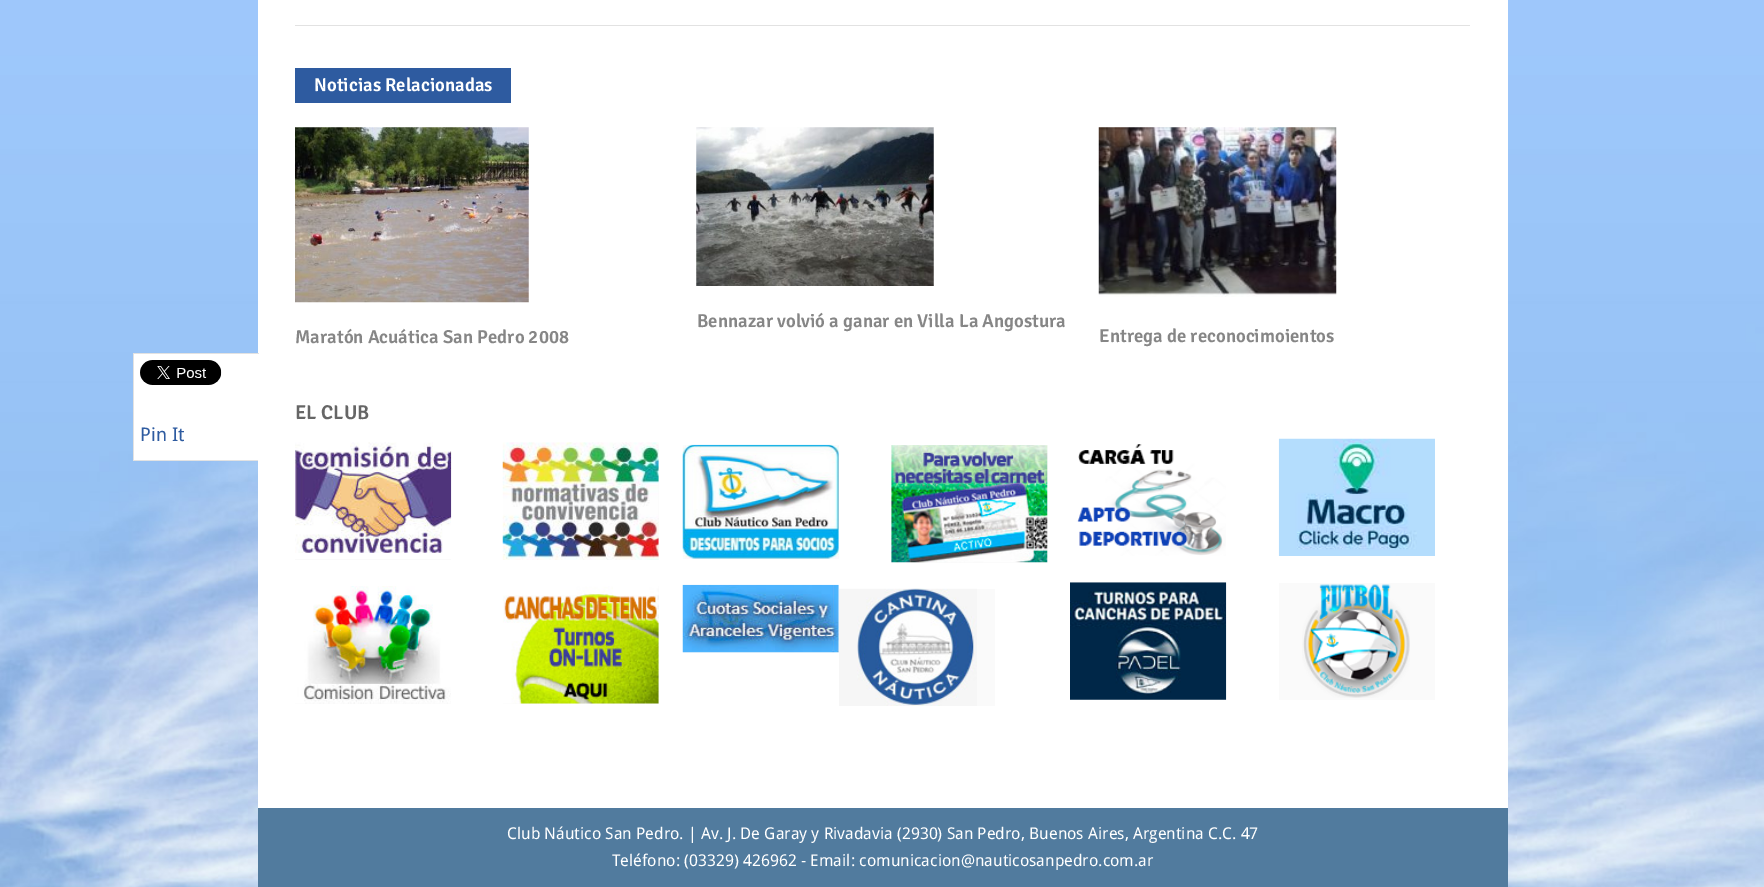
%!PS
<< /PageSize [1764 887] >> setpagedevice
/co { dup -16 bitshift 255 div exch dup -8 bitshift 255 and 255 div exch 255 and 255 div setrgbcolor } def
/fn { [ exch dup neg 0 0 3 -1 roll 0 0 ] selectfont } def
/tx { co fn moveto show } def
/bx { co rectfill } def
/im { 5 dict begin { /h /w /y /x /name } { exch def } forall
  gsave x y translate w h scale
  w h 8 [w 0 0 h 0 0] name (r) file false 3 colorimage grestore end } def
0 887 translate 1 -1 scale
4 setmiterlimit
0 0 1764 887 16#FFFFFF bx
(media/1.raw) 0 0 1764 887 im
258 0 1250 383 16#FFFFFF bx
295 25 1175 1 16#E2E2E2 bx
295 68 216 35 16#2E5BA0 bx
(media/2.raw) 696 127 238 159 im
(media/3.raw) 295 127 234 176 im
(media/4.raw) 1098 127 239 170 im
134 354 125 106 16#FFFFFF bx
133 353 126 1 16#E2E2E2 bx
133 460 126 1 16#E2E2E2 bx
133 353 1 108 16#E2E2E2 bx
(media/5.raw) 140 360 82 25 im
258 383 1250 425 16#FFFFFF bx
(media/6.raw) 295 442 157 117 im
295 559 156 1 16#FAFAFA bx
503 443 156 117 16#FAFAFA bx
(media/7.raw) 502 442 157 118 im
295 703 156 1 16#FAFAFA bx
(media/8.raw) 295 586 156 118 im
503 586 156 118 16#FAFAFA bx
(media/9.raw) 502 586 157 118 im
683 445 156 114 16#FAFAFA bx
(media/10.raw) 682 444 157 115 im
891 445 157 118 16#FAFAFA bx
(media/11.raw) 891 445 157 118 im
683 585 156 68 16#FAFAFA bx
(media/12.raw) 682 584 157 69 im
(media/13.raw) 838 588 139 118 im
977 589 18 117 16#FAFAFA bx
(media/14.raw) 1070 439 156 117 im
(media/15.raw) 1278 438 157 118 im
(media/16.raw) 1070 582 157 118 im
1279 583 156 117 16#FAFAFA bx
(media/17.raw) 1302 584 108 114 im
258 808 1250 79 16#517B9E bx
(Noticias Relacionadas) 314 91 /Signika-SemiBold 18.75 16#FFFFFF tx
(Bennazar volvió a ganar en Villa La Angostura) 697 327 /Signika-SemiBold 18.75 16#868686 tx
(Maratón Acuática San Pedro 2008) 295 343 /Signika-SemiBold 18.75 16#868686 tx
(Entrega de reconocimoientos) 1099 342 /Signika-SemiBold 18.75 16#868686 tx
(Pin It) 140 441 /DroidSans-Regular 18.75 16#2E5BA0 tx
(EL CLUB) 295 419 /Signika-SemiBold 20 16#666666 tx
(Club Náutico San Pedro. | Av. J. De Garay y Rivadavia \(2930\) San Pedro, Buenos Aires, Argentina C.C. 47) 507 839 /DroidSans-Regular 16.25 16#FFFFFF tx
(Teléfono: \(03329\) 426962 - Email: comunicacion@nauticosanpedro.com.ar) 612 866 /DroidSans-Regular 16.25 16#FFFFFF tx
showpage
